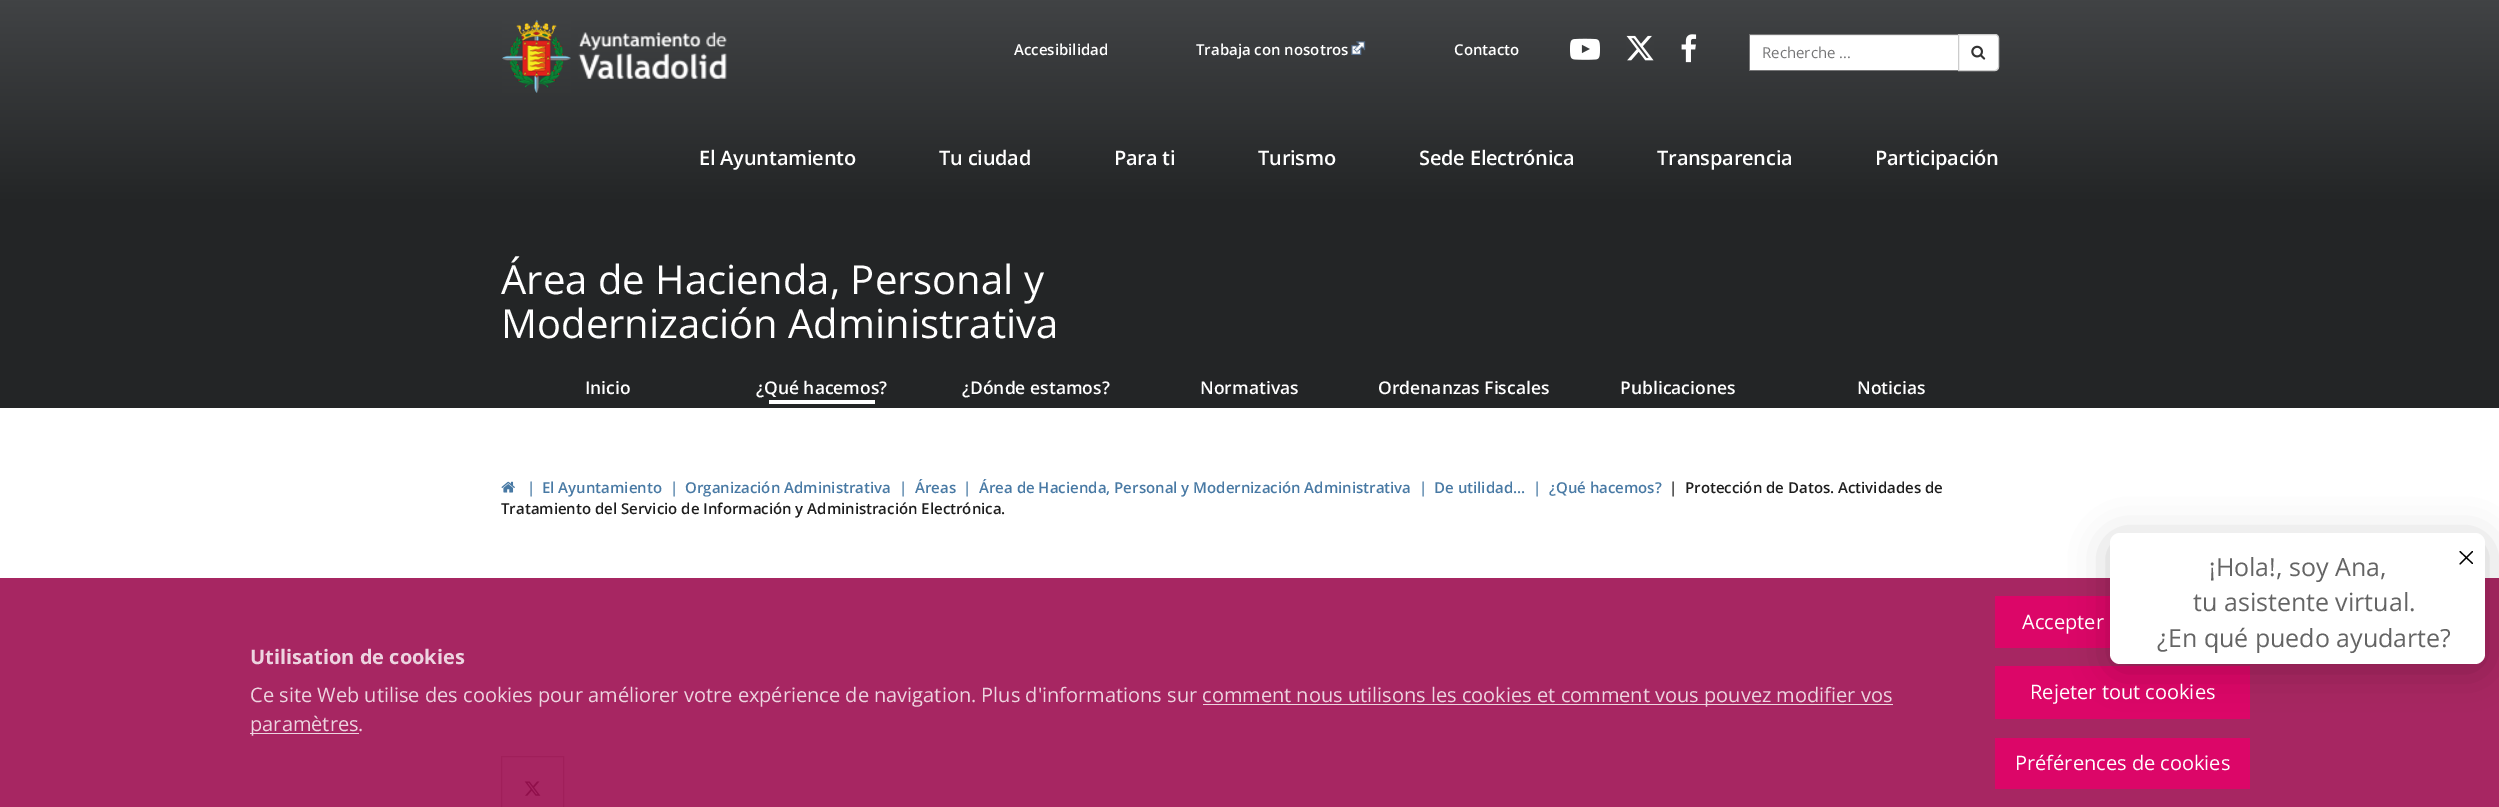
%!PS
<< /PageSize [2499 807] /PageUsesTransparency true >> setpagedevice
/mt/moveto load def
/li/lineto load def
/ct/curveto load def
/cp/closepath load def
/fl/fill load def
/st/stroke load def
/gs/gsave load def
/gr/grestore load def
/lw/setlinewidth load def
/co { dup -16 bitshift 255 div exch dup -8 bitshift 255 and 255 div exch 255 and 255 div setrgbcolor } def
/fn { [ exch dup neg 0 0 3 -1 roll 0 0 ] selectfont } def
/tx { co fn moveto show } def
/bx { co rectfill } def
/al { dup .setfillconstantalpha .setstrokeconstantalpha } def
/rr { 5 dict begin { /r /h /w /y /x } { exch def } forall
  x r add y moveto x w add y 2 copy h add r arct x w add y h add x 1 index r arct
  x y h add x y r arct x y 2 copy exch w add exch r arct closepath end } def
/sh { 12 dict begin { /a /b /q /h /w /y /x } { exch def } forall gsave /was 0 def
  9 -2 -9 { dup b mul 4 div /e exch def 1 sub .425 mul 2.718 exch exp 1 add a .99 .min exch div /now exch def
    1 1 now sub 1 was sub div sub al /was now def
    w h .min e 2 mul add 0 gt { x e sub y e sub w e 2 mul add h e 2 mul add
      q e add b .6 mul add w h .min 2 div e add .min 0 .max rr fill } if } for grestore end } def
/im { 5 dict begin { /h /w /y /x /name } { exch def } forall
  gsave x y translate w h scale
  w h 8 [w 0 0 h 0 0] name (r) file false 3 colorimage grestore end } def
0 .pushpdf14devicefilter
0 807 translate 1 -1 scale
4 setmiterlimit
0 0 2499 807 16#FFFFFF bx
gs 0 0 mt 2499 0 li 2499 206 li 0 206 li cp clip newpath
<< /ShadingType 2 /ColorSpace /DeviceRGB /Coords [1250 206 1250 0] /Extend [true true] /Function << /FunctionType 2 /Domain [0 1] /C0 [.137 .145 .149] /C1 [.255 .263 .271] /N 1 >> >> shfill gr
(media/1.raw) 502 19 69 74 im
(media/2.raw) 578 32 149 47 im
(media/3.raw) 1351 41 15 14 im
(media/4.raw) 1570 38 30 22 im
(media/5.raw) 1626 35 28 26 im
(media/6.raw) 1681 34 16 29 im
1750 36 208 34 16#FFFFFF bx
1750 35 209 1 16#ECECEC bx
1749 34 210 1 16#767677 bx
1749 70 210 1 16#767677 bx
1749 34 1 37 16#767677 bx
16#FFFFFF co
1958.5 34.5 mt 1995 34.5 li 1997 34.5 1998.5 36 1998.5 38 ct 1998.5 67 li 1998.5 69 1997 70.5 1995 70.5 ct 1958.5 70.5 li cp gs fl gr
16#CCCCCC co
st
(media/7.raw) 1971 45 15 15 im
0 206 2499 202 16#232526 bx
769 400 106 4 16#FFFFFF bx
(media/8.raw) 501 481 14 12 im
16#CDCDCD co
501.5 756.5 62 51 rectstroke
(media/9.raw) 524 781 17 15 im
0.85 al
0 578 2499 229 16#980046 bx
0.8 al
1203 704 690 1 16#FFFFFF bx
1 al
250 733 109 1 16#EDD4E0 bx
1995 596 115 52 16#DC0668 bx
1995 666 255 53 16#DC0668 bx
1995 738 255 51 16#DC0668 bx
16#000000 co
2110 539 375 131 10 19 .2 sh
16#FFFFFF co
2110 533 375 131 10 rr fl
16#000000 co
1.2 lw
1 setlinecap
1 setlinejoin
2460 564 mt 2472.5 551.5 li 2460 551.5 mt 2472.5 563.5 li st
(Accesibilidad) 1014 55 /OpenSans-SemiBold 15 16#FFFFFF tx
(Trabaja con nosotros) 1196 55 /OpenSans-SemiBold 15 16#FFFFFF tx
(Contacto) 1454 55 /OpenSans-SemiBold 15 16#FFFFFF tx
(Recherche ...) 1762 58 /OpenSans-Regular 15 16#767677 tx
/OpenSans-SemiBold 20 fn
16#FFFFFF co
699 165 mt -.2 0 (El Ayuntamiento) ashow
939 165 mt -.2 0 (Tu ciudad) ashow
1114 165 mt -.2 0 (Para ti) ashow
1258 165 mt -.2 0 (Turismo) ashow
1419 165 mt -.2 0 (Sede Electrónica) ashow
1657 165 mt -.2 0 (Transparencia) ashow
1875 165 mt -.2 0 (Participación) ashow
(Área de Hacienda, Personal y) 501 294 /OpenSans-Regular 40 16#FFFFFF tx
(Modernización Administrativa) 501 338 /OpenSans-Regular 40 16#FFFFFF tx
(Inicio) 585 394 /OpenSans-SemiBold 17.5 16#FFFFFF tx
(¿Qué hacemos?) 756 394 /OpenSans-SemiBold 17.5 16#FFFFFF tx
(¿Dónde estamos?) 962 394 /OpenSans-SemiBold 17.5 16#FFFFFF tx
(Normativas) 1200 394 /OpenSans-SemiBold 17.5 16#FFFFFF tx
(Ordenanzas Fiscales) 1378 394 /OpenSans-SemiBold 17.5 16#FFFFFF tx
(Publicaciones) 1620 394 /OpenSans-SemiBold 17.5 16#FFFFFF tx
(Noticias) 1857 394 /OpenSans-SemiBold 17.5 16#FFFFFF tx
(|) 527 493 /OpenSans-SemiBold 15 16#4879A4 tx
(El Ayuntamiento) 542 493 /OpenSans-SemiBold 15 16#4879A4 tx
(|) 670 493 /OpenSans-SemiBold 15 16#4879A4 tx
(Organización Administrativa) 685 493 /OpenSans-SemiBold 15 16#4879A4 tx
(|) 899 493 /OpenSans-SemiBold 15 16#4879A4 tx
(Áreas) 915 493 /OpenSans-SemiBold 15 16#4879A4 tx
(|) 963 493 /OpenSans-SemiBold 15 16#4879A4 tx
(Área de Hacienda, Personal y Modernización Administrativa) 979 493 /OpenSans-SemiBold 15 16#4879A4 tx
(|) 1419 493 /OpenSans-SemiBold 15 16#4879A4 tx
(De utilidad...) 1434 493 /OpenSans-SemiBold 15 16#4879A4 tx
(|) 1533 493 /OpenSans-SemiBold 15 16#4879A4 tx
(¿Qué hacemos?) 1549 493 /OpenSans-SemiBold 15 16#4879A4 tx
(|) 1669 493 /OpenSans-SemiBold 15 16#1E1E1E tx
(Protección de Datos. Actividades de) 1685 493 /OpenSans-SemiBold 15 16#1E1E1E tx
(Tratamiento del Servicio de Información y Administración Electrónica.) 501 514 /OpenSans-SemiBold 15 16#1E1E1E tx
(Utilisation de cookies) 250 664 /OpenSans-Bold 20 16#EDD4E0 tx
(Ce site Web utilise des cookies pour améliorer votre expérience de navigation. Plus d'informations sur) 250 702 /OpenSans-Regular 20 16#EDD4E0 tx
(comment nous utilisons les cookies et comment vous pouvez modifier vos) 1202 702 /OpenSans-Regular 20 16#EDD4E0 tx
(paramètres) 250 731 /OpenSans-Regular 20 16#EDD4E0 tx
(.) 358 731 /OpenSans-Regular 20 16#EDD4E0 tx
(Accepter) 2022 629 /OpenSans-Regular 20 16#FFFFFF tx
(Rejeter tout cookies) 2030 699 /OpenSans-Regular 20 16#FFFFFF tx
(Préférences de cookies) 2015 770 /OpenSans-Regular 20 16#FFFFFF tx
(¡Hola!, soy Ana,) 2209 576 /OpenSans-Regular 25 16#646464 tx
(tu asistente virtual.) 2193 611 /OpenSans-Regular 25 16#646464 tx
(¿En qué puedo ayudarte?) 2157 647 /OpenSans-Regular 25 16#646464 tx
.poppdf14devicefilter showpage
